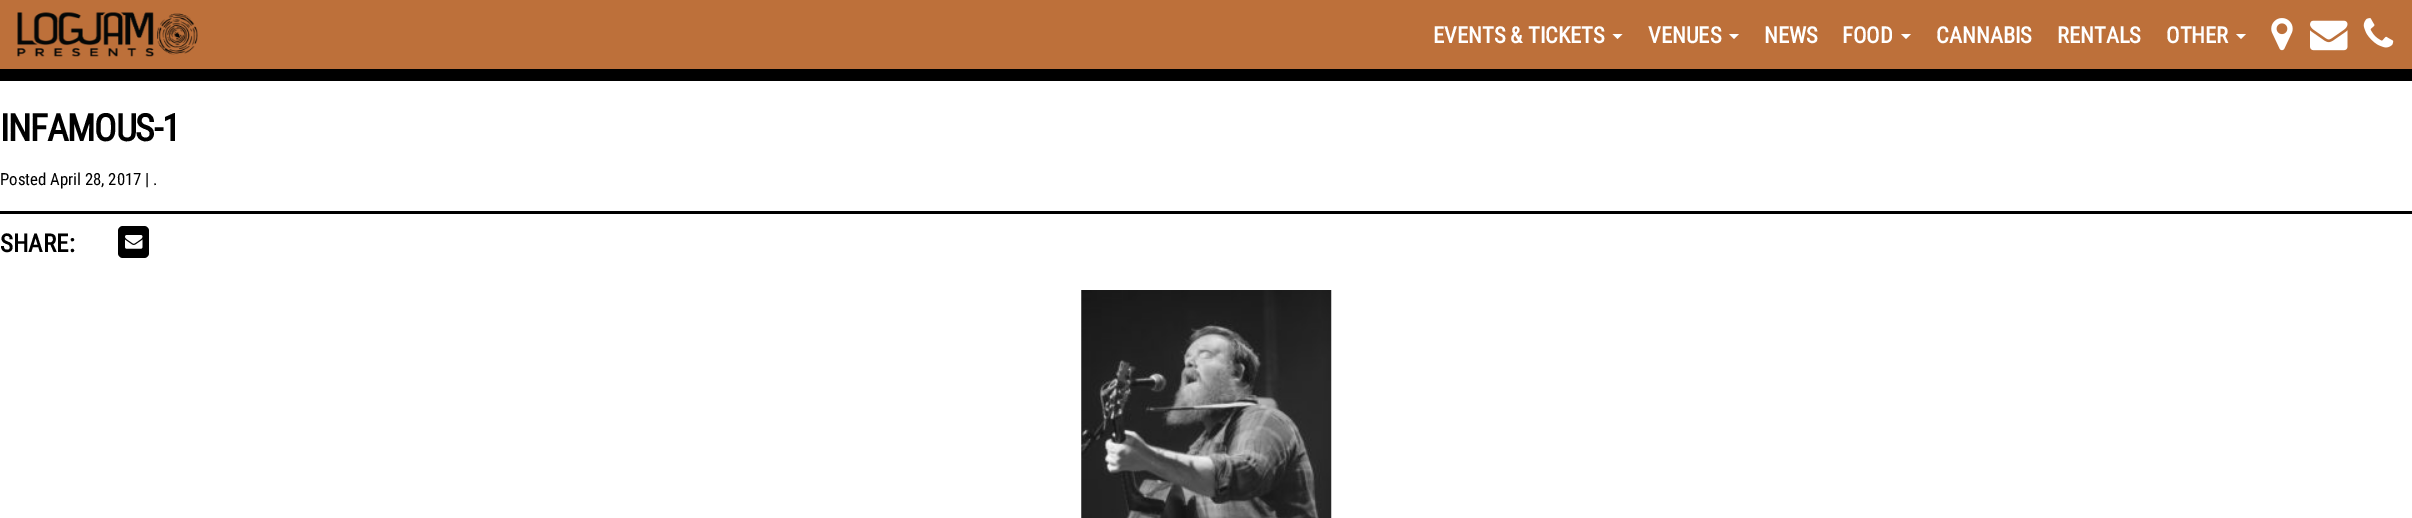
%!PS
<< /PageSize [2412 518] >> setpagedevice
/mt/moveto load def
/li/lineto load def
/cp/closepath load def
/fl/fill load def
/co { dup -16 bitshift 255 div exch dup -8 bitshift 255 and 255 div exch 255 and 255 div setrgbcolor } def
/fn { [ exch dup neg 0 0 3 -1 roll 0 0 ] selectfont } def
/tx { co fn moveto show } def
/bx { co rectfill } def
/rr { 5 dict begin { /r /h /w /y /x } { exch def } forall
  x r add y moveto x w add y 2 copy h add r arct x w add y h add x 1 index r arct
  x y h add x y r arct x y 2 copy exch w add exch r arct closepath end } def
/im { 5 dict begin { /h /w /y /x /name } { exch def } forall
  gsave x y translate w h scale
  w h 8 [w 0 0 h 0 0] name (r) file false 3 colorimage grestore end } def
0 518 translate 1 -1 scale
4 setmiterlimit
0 0 2412 518 16#FFFFFF bx
0 0 2412 69 16#BD703A bx
0 69 2412 12 16#000000 bx
(media/1.raw) 17 12 181 45 im
16#FFFFFF co
1612.5 34 mt 1622.5 34 li 1617.5 39 li cp fl
1729 34 mt 1739 34 li 1734 39 li cp fl
1901 34 mt 1911 34 li 1906 39 li cp fl
2236 34 mt 2246 34 li 2241 39 li cp fl
(media/2.raw) 2271 18 22 33 im
(media/3.raw) 2310 20 38 31 im
(media/4.raw) 2363 18 31 30 im
0 211 2412 3 16#000000 bx
118 226 31 32 5 rr fl
(media/5.raw) 125 235 18 14 im
(media/6.raw) 1081 290 251 228 im
(EVENTS & TICKETS) 1433 43 /RobotoCondensed-Bold 22.5 16#FFFFFF tx
(VENUES) 1648 43 /RobotoCondensed-Bold 22.5 16#FFFFFF tx
(NEWS) 1764 43 /RobotoCondensed-Bold 22.5 16#FFFFFF tx
(FOOD) 1842 43 /RobotoCondensed-Bold 22.5 16#FFFFFF tx
(CANNABIS) 1936 43 /RobotoCondensed-Bold 22.5 16#FFFFFF tx
(RENTALS) 2057 43 /RobotoCondensed-Bold 22.5 16#FFFFFF tx
(OTHER) 2166 43 /RobotoCondensed-Bold 22.5 16#FFFFFF tx
/RobotoCondensed-Bold 37.5 fn
16#000000 co
0 141 mt -1.25 0 (INFAMOUS-1) ashow
(Posted April 28, 2017 | .) 0 185 /RobotoCondensed-Regular 16.75 16#000000 tx
(SHARE:) 0 252 /RobotoCondensed-Bold 25 16#000000 tx
showpage
